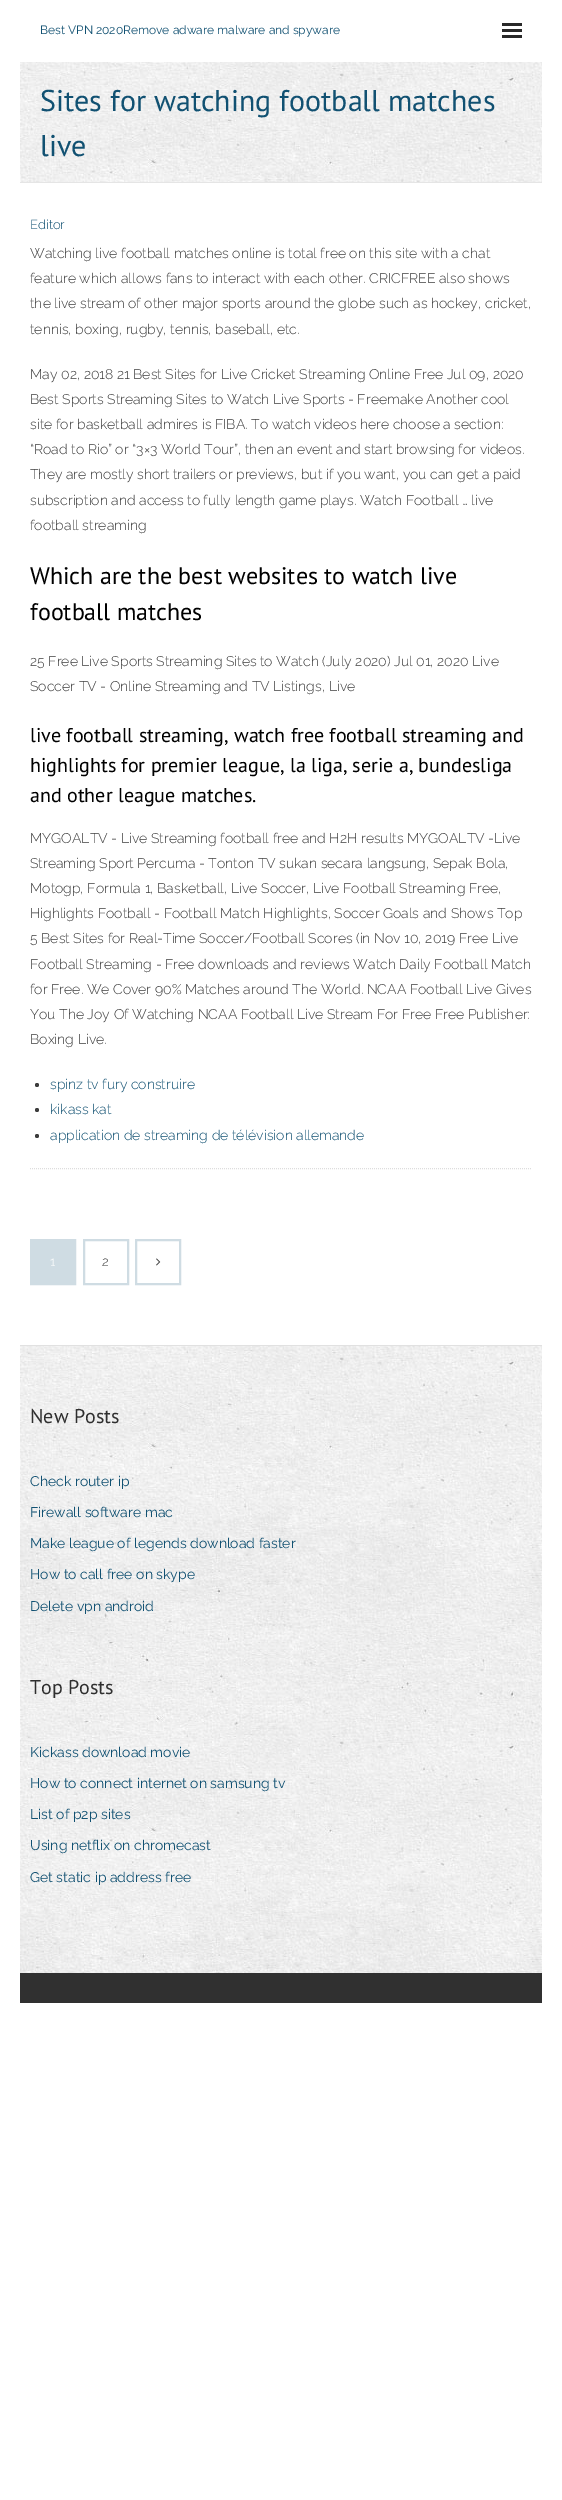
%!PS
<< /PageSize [562 2500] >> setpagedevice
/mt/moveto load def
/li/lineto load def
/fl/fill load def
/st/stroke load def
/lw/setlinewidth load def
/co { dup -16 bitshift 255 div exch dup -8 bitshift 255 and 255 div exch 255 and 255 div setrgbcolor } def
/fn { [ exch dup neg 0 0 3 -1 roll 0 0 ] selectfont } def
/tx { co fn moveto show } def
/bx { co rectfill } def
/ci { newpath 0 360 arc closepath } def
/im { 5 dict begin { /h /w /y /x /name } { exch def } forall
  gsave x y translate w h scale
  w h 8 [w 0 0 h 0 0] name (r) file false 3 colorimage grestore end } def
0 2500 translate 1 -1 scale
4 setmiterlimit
0 0 562 2500 16#FFFFFF bx
502 23 20 3 16#292929 bx
502 29 20 3 16#292929 bx
502 35 20 3 16#292929 bx
(media/1.raw) 20 62 522 120 im
20 182 522 1 16#E5E5E5 bx
16#DDDDDD co
[1 1] 0 setdash
30 1168.5 mt 532 1168.5 li st
16#3D3D3D co
37 1085 2 ci fl
37 1110 2 ci fl
37 1136 2 ci fl
16#CFDCE3 co
2 lw
[] 0 setdash
31 1240 44 44 rectstroke
32 1241 42 42 16#CFDCE3 bx
84 1240 44 44 rectstroke
136 1240 44 44 rectstroke
(media/2.raw) 156 1258 5 8 im
(media/3.raw) 20 1346 522 627 im
20 1345 522 1 16#E1E1E1 bx
20 1973 522 30 16#303030 bx
(Best VPN 2020Remove adware malware and spyware) 40 34 /Raleway-Regular 12 16#115172 tx
(Sites for watching football matches) 40 111 /PTSans-Regular 30 16#115172 tx
(live) 40 156 /PTSans-Regular 30 16#115172 tx
(Editor) 30 229 /Raleway-Light 13 16#115172 tx
(Watching live football matches online is total free on this site with a chat) 30 258 /Raleway-Light 14 16#3D3D3D tx
(feature which allows fans to interact with each other. CRICFREE also shows) 30 283 /Raleway-Light 14 16#3D3D3D tx
(the live stream of other major sports around the globe such as hockey, cricket,) 30 308 /Raleway-Light 14 16#3D3D3D tx
(tennis, boxing, rugby, tennis, baseball, etc.) 30 334 /Raleway-Light 14 16#3D3D3D tx
(May 02, 2018 21 Best Sites for Live Cricket Streaming Online Free Jul 09, 2020) 30 379 /Raleway-Light 14 16#3D3D3D tx
(Best Sports Streaming Sites to Watch Live Sports - Freemake Another cool) 30 404 /Raleway-Light 14 16#3D3D3D tx
(site for basketball admires is FIBA. To watch videos here choose a section:) 30 429 /Raleway-Light 14 16#3D3D3D tx
(“Road to Rio” or “3×3 World Tour”, then an event and start browsing for videos.) 30 454 /Raleway-Light 14 16#3D3D3D tx
(They are mostly short trailers or previews, but if you want, you can get a paid) 30 479 /Raleway-Light 14 16#3D3D3D tx
(subscription and access to fully length game plays. Watch Football … live) 30 505 /Raleway-Light 14 16#3D3D3D tx
(football streaming) 30 530 /Raleway-Light 14 16#3D3D3D tx
(Which are the best websites to watch live) 30 584 /PTSans-Regular 24 16#000000 tx
(football matches) 30 620 /PTSans-Regular 24 16#000000 tx
(25 Free Live Sports Streaming Sites to Watch \(July 2020\) Jul 01, 2020 Live) 30 666 /Raleway-Light 14 16#3D3D3D tx
(Soccer TV - Online Streaming and TV Listings, Live) 30 691 /Raleway-Light 14 16#3D3D3D tx
(live football streaming, watch free football streaming and) 30 742 /PTSans-Regular 20 16#000000 tx
(highlights for premier league, la liga, serie a, bundesliga) 30 772 /PTSans-Regular 20 16#000000 tx
(and other league matches.) 30 802 /PTSans-Regular 20 16#000000 tx
(MYGOALTV - Live Streaming football free and H2H results MYGOALTV -Live) 30 843 /Raleway-Light 14 16#3D3D3D tx
(Streaming Sport Percuma - Tonton TV sukan secara langsung, Sepak Bola,) 30 868 /Raleway-Light 14 16#3D3D3D tx
(Motogp, Formula 1, Basketball, Live Soccer, Live Football Streaming Free,) 30 893 /Raleway-Light 14 16#3D3D3D tx
(Highlights Football - Football Match Highlights, Soccer Goals and Shows Top) 30 918 /Raleway-Light 14 16#3D3D3D tx
(5 Best Sites for Real-Time Soccer/Football Scores \(in Nov 10, 2019 Free Live) 30 943 /Raleway-Light 14 16#3D3D3D tx
(Football Streaming - Free downloads and reviews Watch Daily Football Match) 30 969 /Raleway-Light 14 16#3D3D3D tx
(for Free. We Cover 90% Matches around The World. NCAA Football Live Gives) 30 994 /Raleway-Light 14 16#3D3D3D tx
(You The Joy Of Watching NCAA Football Live Stream For Free Free Publisher:) 30 1019 /Raleway-Light 14 16#3D3D3D tx
(Boxing Live.) 30 1044 /Raleway-Light 14 16#3D3D3D tx
(spinz tv fury construire) 50 1089 /Raleway-Light 14 16#115172 tx
(kikass kat) 50 1114 /Raleway-Light 14 16#115172 tx
(application de streaming de télévision allemande) 50 1140 /Raleway-Light 14 16#115172 tx
(1) 50 1266 /Raleway-Light 13 16#FFFFFF tx
(2) 102 1266 /Raleway-Light 13 16#3D3D3D tx
(New Posts) 30 1423 /PTSans-Regular 20 16#2F2F2F tx
(Check router ip) 30 1486 /Raleway-Regular 14 16#115172 tx
(Firewall software mac) 30 1517 /Raleway-Regular 14 16#115172 tx
(Make league of legends download faster) 30 1548 /Raleway-Regular 14 16#115172 tx
(How to call free on skype) 30 1579 /Raleway-Regular 14 16#115172 tx
(Delete vpn android) 30 1611 /Raleway-Regular 14 16#115172 tx
(Top Posts) 30 1694 /PTSans-Regular 20 16#2F2F2F tx
(Kickass download movie) 30 1757 /Raleway-Regular 14 16#115172 tx
(How to connect internet on samsung tv) 30 1788 /Raleway-Regular 14 16#115172 tx
(List of p2p sites) 30 1819 /Raleway-Regular 14 16#115172 tx
(Using netflix on chromecast) 30 1850 /Raleway-Regular 14 16#115172 tx
(Get static ip address free) 30 1882 /Raleway-Regular 14 16#115172 tx
showpage
